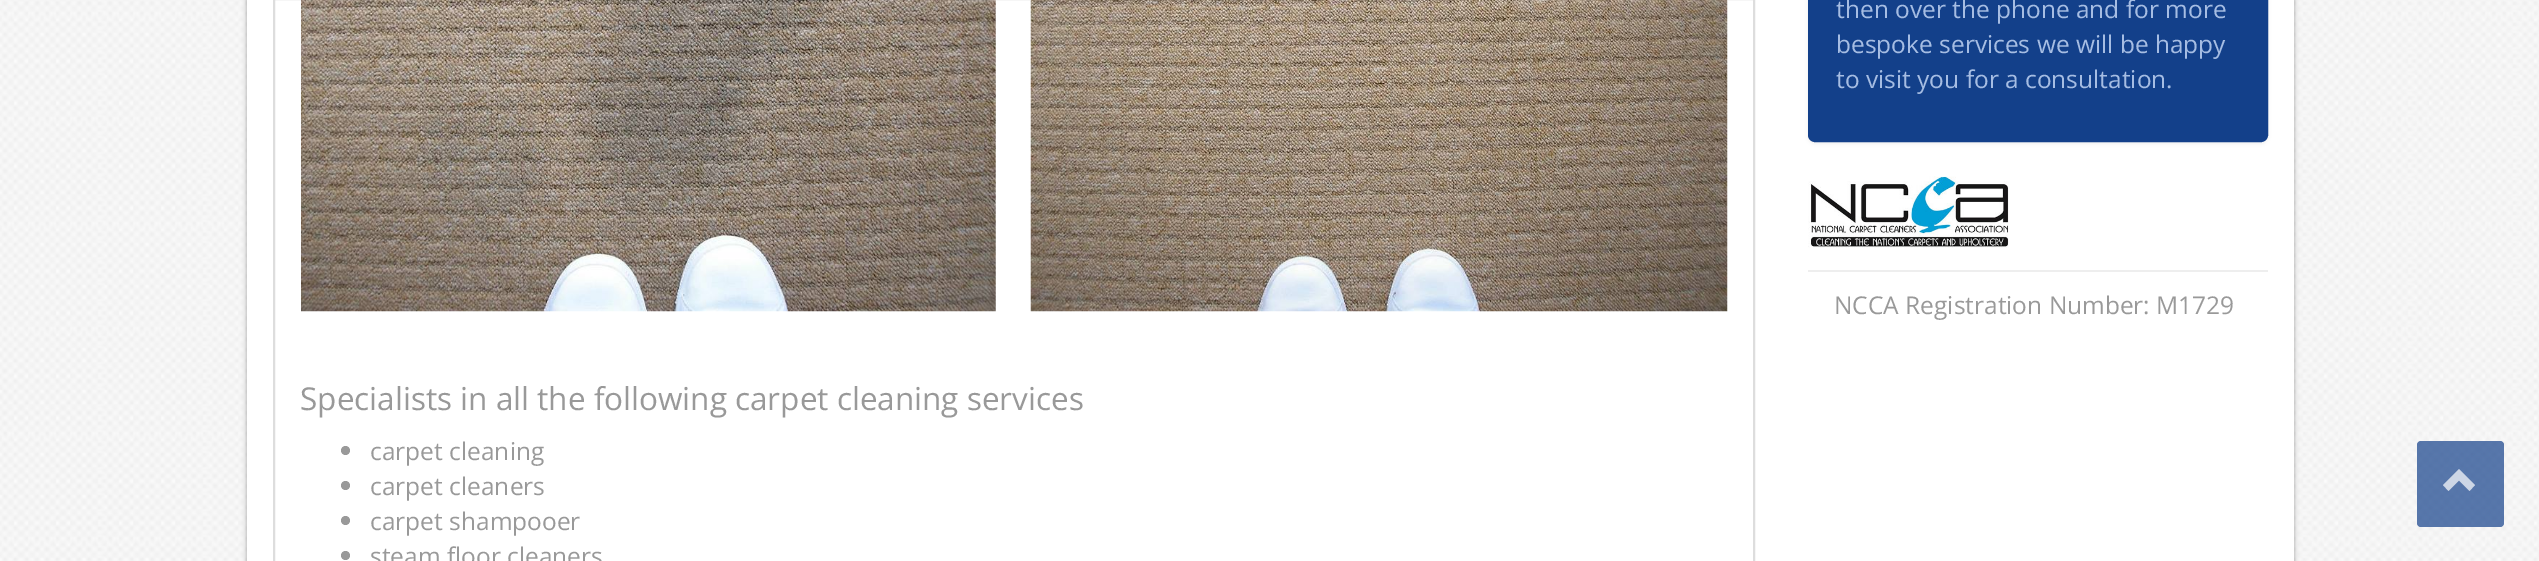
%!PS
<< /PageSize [2539 561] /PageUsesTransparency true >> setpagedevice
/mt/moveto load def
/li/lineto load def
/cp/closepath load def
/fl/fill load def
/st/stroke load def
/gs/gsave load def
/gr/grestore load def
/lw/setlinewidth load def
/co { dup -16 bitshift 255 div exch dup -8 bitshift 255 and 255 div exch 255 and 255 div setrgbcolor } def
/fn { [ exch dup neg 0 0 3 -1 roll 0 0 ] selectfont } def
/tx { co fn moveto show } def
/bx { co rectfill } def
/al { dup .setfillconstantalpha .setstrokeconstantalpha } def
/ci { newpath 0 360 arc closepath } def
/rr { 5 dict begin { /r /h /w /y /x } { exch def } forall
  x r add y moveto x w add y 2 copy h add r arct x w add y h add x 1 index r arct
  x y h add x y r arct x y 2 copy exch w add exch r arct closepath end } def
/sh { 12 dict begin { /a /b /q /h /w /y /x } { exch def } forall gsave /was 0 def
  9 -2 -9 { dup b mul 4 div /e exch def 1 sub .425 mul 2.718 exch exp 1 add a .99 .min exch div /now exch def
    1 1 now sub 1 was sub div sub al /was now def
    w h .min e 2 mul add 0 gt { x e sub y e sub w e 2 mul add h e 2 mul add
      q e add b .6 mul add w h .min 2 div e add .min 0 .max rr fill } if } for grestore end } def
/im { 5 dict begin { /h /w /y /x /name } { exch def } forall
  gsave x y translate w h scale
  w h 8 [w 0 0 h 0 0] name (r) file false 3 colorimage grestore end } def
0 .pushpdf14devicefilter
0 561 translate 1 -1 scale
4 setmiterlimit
0 0 2539 561 16#FFFFFF bx
(media/1.raw) 0 0 2539 561 im
16#222222 co
247 -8 2047 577 0 2.5 .4 sh
247 0 2047 561 16#FFFFFF bx
16#000000 co
1808 -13 460 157 7 2 .05 sh
16#13408A co
1809 -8 458 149 6 rr gs fl gr
2 lw
st
(media/2.raw) 1808 176 201 72 im
1808 270 460 2 16#EEEEEE bx
16#DDDDDD co
274 -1 1480 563 rectstroke
(media/3.raw) 301 0 695 312 im
(media/4.raw) 1030 0 698 312 im
16#999999 co
345.5 450.5 4.5 ci fl
345.5 485.5 4.5 ci fl
345.5 520.5 4.5 ci fl
345.5 555.5 4.5 ci fl
0.7 al
16#13408A co
2417 441 87 86 4 rr fl
16#FFFFFF co
2475 485 mt 2469.5 491 li 2459 480.5 li 2448.5 491 li 2443 485 li 2459 469 li cp fl
1 al
(then over the phone and for more) 1836 18 /OpenSans-Regular 24.5 16#A6BDE3 tx
(bespoke services we will be happy) 1836 53 /OpenSans-Regular 24.5 16#A6BDE3 tx
(to visit you for a consultation.) 1836 88 /OpenSans-Regular 24.5 16#A6BDE3 tx
(NCCA Registration Number: M1729) 1834 314 /OpenSans-Regular 24.5 16#999999 tx
(Specialists in all the following carpet cleaning services) 300 410 /OpenSans-Regular 31.5 16#999999 tx
(carpet cleaning) 370 460 /OpenSans-Regular 24.5 16#999999 tx
(carpet cleaners) 370 495 /OpenSans-Regular 24.5 16#999999 tx
(carpet shampooer) 370 530 /OpenSans-Regular 24.5 16#999999 tx
(steam floor cleaners) 370 565 /OpenSans-Regular 24.5 16#999999 tx
.poppdf14devicefilter showpage
